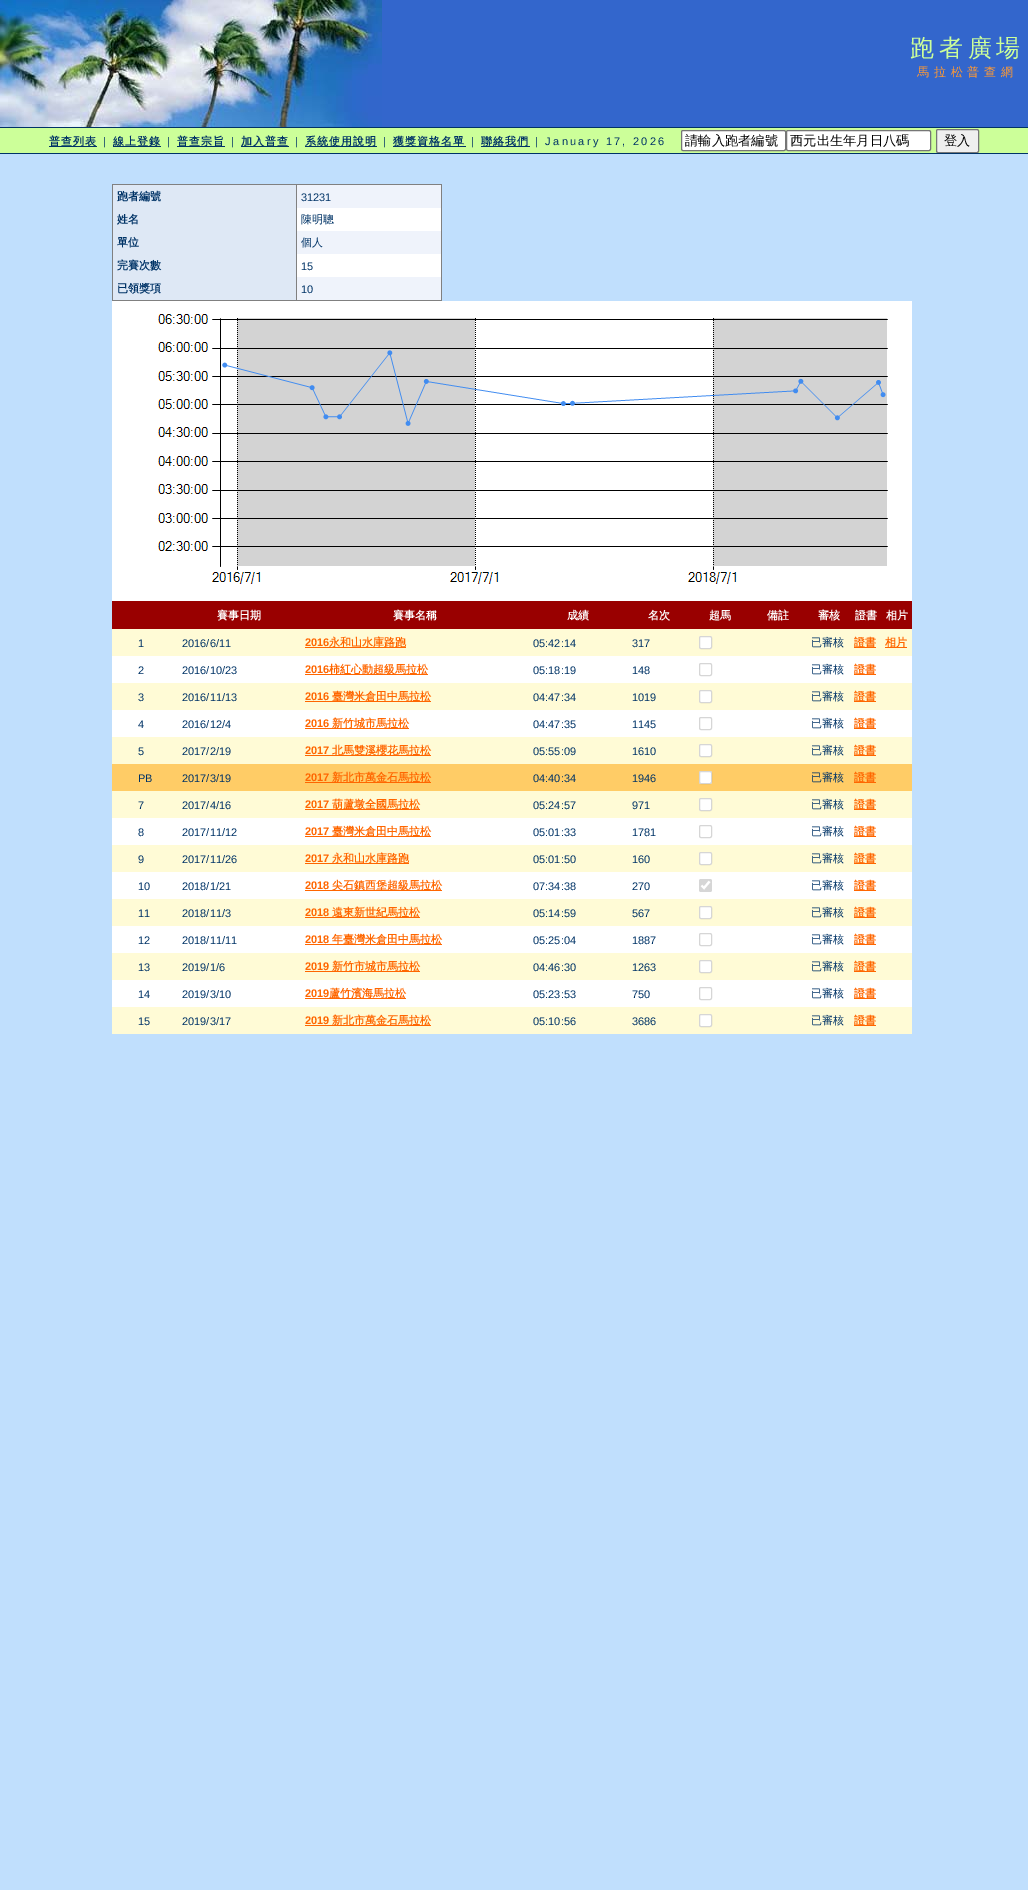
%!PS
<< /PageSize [1028 1890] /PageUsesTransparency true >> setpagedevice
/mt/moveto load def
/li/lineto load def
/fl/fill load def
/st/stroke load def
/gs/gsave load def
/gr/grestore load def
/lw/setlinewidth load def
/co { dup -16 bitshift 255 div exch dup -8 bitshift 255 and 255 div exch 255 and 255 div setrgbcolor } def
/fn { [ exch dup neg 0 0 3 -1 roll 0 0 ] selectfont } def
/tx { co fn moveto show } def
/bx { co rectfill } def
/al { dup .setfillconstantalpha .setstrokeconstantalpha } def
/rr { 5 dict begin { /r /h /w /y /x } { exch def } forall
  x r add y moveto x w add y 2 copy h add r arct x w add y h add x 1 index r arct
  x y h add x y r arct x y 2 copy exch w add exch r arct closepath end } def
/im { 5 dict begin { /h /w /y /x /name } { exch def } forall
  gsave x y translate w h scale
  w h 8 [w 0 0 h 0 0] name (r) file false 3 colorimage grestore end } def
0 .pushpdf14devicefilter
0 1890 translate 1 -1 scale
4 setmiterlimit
0 0 1028 1890 16#C0DFFD bx
382 0 646 127 16#3366CC bx
(media/1.raw) 0 0 382 127 im
0 127 1028 1 16#003366 bx
0 128 1028 25 16#CCFF99 bx
49 146 48 1 16#003366 bx
113 146 48 1 16#003366 bx
177 146 48 1 16#003366 bx
241 146 48 1 16#003366 bx
305 146 72 1 16#003366 bx
393 146 73 1 16#003366 bx
481 146 49 1 16#003366 bx
16#FFFFFF co
681.5 130.5 104 20 1.5 rr gs fl gr
16#767676 co
st
16#FFFFFF co
786.5 130.5 144 20 1.5 rr gs fl gr
16#767676 co
st
16#EFEFEF co
936.5 129.5 42 23 1.5 rr gs fl gr
16#767676 co
st
0 153 1028 1 16#003366 bx
112 184 330 1 16#808080 bx
441 184 1 117 16#808080 bx
112 300 330 1 16#808080 bx
112 184 1 117 16#808080 bx
297 185 144 23 16#EFF3FB bx
113 185 183 115 16#DEE8F5 bx
297 208 144 23 16#FFFFFF bx
297 231 144 23 16#EFF3FB bx
297 254 144 23 16#FFFFFF bx
297 277 144 23 16#EFF3FB bx
296 184 1 117 16#808080 bx
(media/2.raw) 112 301 800 300 im
112 601 800 28 16#990000 bx
112 629 800 27 16#FFFBD6 bx
305 647 101 1 16#FF6600 bx
16#FFFFFF co
699 636 13 13 2 rr fl
0.3 al
16#767676 co
699.5 636.5 12 12 1.5 rr st
1 al
854 647 22 1 16#FF6600 bx
885 647 22 1 16#FF6600 bx
112 656 800 27 16#FFFFFF bx
305 674 123 1 16#FF6600 bx
16#D6D6D6 co
699.5 663.5 12 12 1.5 rr st
854 674 22 1 16#FF6600 bx
112 683 800 27 16#FFFBD6 bx
305 701 126 1 16#FF6600 bx
16#FFFFFF co
699 690 13 13 2 rr fl
0.3 al
16#767676 co
699.5 690.5 12 12 1.5 rr st
1 al
854 701 22 1 16#FF6600 bx
112 710 800 27 16#FFFFFF bx
305 728 104 1 16#FF6600 bx
16#D6D6D6 co
699.5 717.5 12 12 1.5 rr st
854 728 22 1 16#FF6600 bx
112 737 800 27 16#FFFBD6 bx
305 755 126 1 16#FF6600 bx
16#FFFFFF co
699 744 13 13 2 rr fl
0.3 al
16#767676 co
699.5 744.5 12 12 1.5 rr st
1 al
854 755 22 1 16#FF6600 bx
112 764 800 27 16#FFCC66 bx
305 782 126 1 16#FF6600 bx
16#FFFFFF co
699 771 13 13 2 rr fl
0.3 al
16#767676 co
699.5 771.5 12 12 1.5 rr st
1 al
854 782 22 1 16#FF6600 bx
112 791 800 27 16#FFFBD6 bx
305 809 115 1 16#FF6600 bx
16#FFFFFF co
699 798 13 13 2 rr fl
0.3 al
16#767676 co
699.5 798.5 12 12 1.5 rr st
1 al
854 809 22 1 16#FF6600 bx
112 818 800 27 16#FFFFFF bx
305 836 126 1 16#FF6600 bx
16#D6D6D6 co
699.5 825.5 12 12 1.5 rr st
854 836 22 1 16#FF6600 bx
112 845 800 27 16#FFFBD6 bx
305 863 104 1 16#FF6600 bx
16#FFFFFF co
699 852 13 13 2 rr fl
0.3 al
16#767676 co
699.5 852.5 12 12 1.5 rr st
1 al
854 863 22 1 16#FF6600 bx
112 872 800 27 16#FFFFFF bx
305 890 137 1 16#FF6600 bx
16#D6D6D6 co
699 879 13 13 2 rr fl
16#FFFFFF co
2.1 lw
701.5 885.5 mt 704 888 li 709.5 881.5 li st
854 890 22 1 16#FF6600 bx
112 899 800 27 16#FFFBD6 bx
305 917 115 1 16#FF6600 bx
16#FFFFFF co
699 906 13 13 2 rr fl
0.3 al
16#767676 co
1 lw
699.5 906.5 12 12 1.5 rr st
1 al
854 917 22 1 16#FF6600 bx
112 926 800 27 16#FFFFFF bx
305 944 137 1 16#FF6600 bx
16#D6D6D6 co
699.5 933.5 12 12 1.5 rr st
854 944 22 1 16#FF6600 bx
112 953 800 27 16#FFFBD6 bx
305 971 115 1 16#FF6600 bx
16#FFFFFF co
699 960 13 13 2 rr fl
0.3 al
16#767676 co
699.5 960.5 12 12 1.5 rr st
1 al
854 971 22 1 16#FF6600 bx
112 980 800 27 16#FFFFFF bx
305 998 101 1 16#FF6600 bx
16#D6D6D6 co
699.5 987.5 12 12 1.5 rr st
854 998 22 1 16#FF6600 bx
112 1007 800 27 16#FFFBD6 bx
305 1025 126 1 16#FF6600 bx
16#FFFFFF co
699 1014 13 13 2 rr fl
0.3 al
16#767676 co
699.5 1014.5 12 12 1.5 rr st
1 al
854 1025 22 1 16#FF6600 bx
/WenQuanYiZenHei-Medium 24 fn
16#CCFF99 co
910 56 mt 4.75 0 (跑者廣場) ashow
/WenQuanYiZenHei-Medium 12 fn
16#FF9933 co
917 76 mt 4.75 0 (馬拉松普查網) ashow
/WenQuanYiZenHei-Bold 11 fn
16#003366 co
49 145 mt 1 0 (普查列表) ashow
/LiberationSans-Regular 11 fn
103 145 mt 2.25 0 (|) ashow
/WenQuanYiZenHei-Bold 11 fn
113 145 mt 1 0 (線上登錄) ashow
/LiberationSans-Regular 11 fn
167 145 mt 2.25 0 (|) ashow
/WenQuanYiZenHei-Bold 11 fn
177 145 mt 1 0 (普查宗旨) ashow
/LiberationSans-Regular 11 fn
231 145 mt 2.25 0 (|) ashow
/WenQuanYiZenHei-Bold 11 fn
241 145 mt 1 0 (加入普查) ashow
/LiberationSans-Regular 11 fn
295 145 mt 2.25 0 (|) ashow
/WenQuanYiZenHei-Bold 11 fn
305 145 mt 1 0 (系統使用說明) ashow
/LiberationSans-Regular 11 fn
383 145 mt 2.25 0 (|) ashow
/WenQuanYiZenHei-Bold 11 fn
393 145 mt 1 0 (獲獎資格名單) ashow
/LiberationSans-Regular 11 fn
471 145 mt 2.25 0 (|) ashow
/WenQuanYiZenHei-Bold 11 fn
481 145 mt 1 0 (聯絡我們) ashow
/LiberationSans-Regular 11 fn
535 145 mt 2.25 0 (| January 17, 2026) ashow
(請輸入跑者編號) 685 145 /WenQuanYiZenHei-Medium 13.25 16#000000 tx
(西元出生年月日八碼) 790 145 /WenQuanYiZenHei-Medium 13.25 16#000000 tx
(登入) 944 145 /WenQuanYiZenHei-Medium 13.25 16#000000 tx
(跑者編號) 117 200 /WenQuanYiZenHei-Bold 11 16#003366 tx
(31231) 301 201 /LiberationSans-Regular 11 16#003366 tx
(姓名) 117 223 /WenQuanYiZenHei-Bold 11 16#003366 tx
(陳明聰) 301 223 /WenQuanYiZenHei-Medium 11 16#003366 tx
(單位) 117 246 /WenQuanYiZenHei-Bold 11 16#003366 tx
(個人) 301 246 /WenQuanYiZenHei-Medium 11 16#003366 tx
(完賽次數) 117 269 /WenQuanYiZenHei-Bold 11 16#003366 tx
(15) 301 270 /LiberationSans-Regular 11 16#003366 tx
(已領獎項) 117 292 /WenQuanYiZenHei-Bold 11 16#003366 tx
(10) 301 293 /LiberationSans-Regular 11 16#003366 tx
(賽事日期) 217 619 /WenQuanYiZenHei-Bold 11 16#FFFFFF tx
(賽事名稱) 393 619 /WenQuanYiZenHei-Bold 11 16#FFFFFF tx
(成績) 567 619 /WenQuanYiZenHei-Bold 11 16#FFFFFF tx
(名次) 648 619 /WenQuanYiZenHei-Bold 11 16#FFFFFF tx
(超馬) 709 619 /WenQuanYiZenHei-Bold 11 16#FFFFFF tx
(備註) 767 619 /WenQuanYiZenHei-Bold 11 16#FFFFFF tx
(審核) 818 619 /WenQuanYiZenHei-Bold 11 16#FFFFFF tx
(證書) 855 619 /WenQuanYiZenHei-Bold 11 16#FFFFFF tx
(相片) 886 619 /WenQuanYiZenHei-Bold 11 16#FFFFFF tx
(1) 138 647 /LiberationSans-Regular 11 16#003366 tx
(2016/6/11) 182 647 /LiberationSans-Regular 11 16#003366 tx
(2016) 305 646 /LiberationSans-Bold 11 16#FF6600 tx
(永和山水庫路跑) 329 646 /WenQuanYiZenHei-Bold 11 16#FF6600 tx
(05:42:14) 533 647 /LiberationSans-Regular 11 16#003366 tx
(317) 632 647 /LiberationSans-Regular 11 16#003366 tx
(已審核) 811 646 /WenQuanYiZenHei-Medium 11 16#003366 tx
(證書) 854 646 /WenQuanYiZenHei-Bold 11 16#FF6600 tx
(相片) 885 646 /WenQuanYiZenHei-Bold 11 16#FF6600 tx
(2) 138 674 /LiberationSans-Regular 11 16#003366 tx
(2016/10/23) 182 674 /LiberationSans-Regular 11 16#003366 tx
(2016) 305 673 /LiberationSans-Bold 11 16#FF6600 tx
(柿紅心動超級馬拉松) 329 673 /WenQuanYiZenHei-Bold 11 16#FF6600 tx
(05:18:19) 533 674 /LiberationSans-Regular 11 16#003366 tx
(148) 632 674 /LiberationSans-Regular 11 16#003366 tx
(已審核) 811 673 /WenQuanYiZenHei-Medium 11 16#003366 tx
(證書) 854 673 /WenQuanYiZenHei-Bold 11 16#FF6600 tx
(3) 138 701 /LiberationSans-Regular 11 16#003366 tx
(2016/11/13) 182 701 /LiberationSans-Regular 11 16#003366 tx
(2016) 305 700 /LiberationSans-Bold 11 16#FF6600 tx
(臺灣米倉田中馬拉松) 332 700 /WenQuanYiZenHei-Bold 11 16#FF6600 tx
(04:47:34) 533 701 /LiberationSans-Regular 11 16#003366 tx
(1019) 632 701 /LiberationSans-Regular 11 16#003366 tx
(已審核) 811 700 /WenQuanYiZenHei-Medium 11 16#003366 tx
(證書) 854 700 /WenQuanYiZenHei-Bold 11 16#FF6600 tx
(4) 138 728 /LiberationSans-Regular 11 16#003366 tx
(2016/12/4) 182 728 /LiberationSans-Regular 11 16#003366 tx
(2016) 305 727 /LiberationSans-Bold 11 16#FF6600 tx
(新竹城市馬拉松) 332 727 /WenQuanYiZenHei-Bold 11 16#FF6600 tx
(04:47:35) 533 728 /LiberationSans-Regular 11 16#003366 tx
(1145) 632 728 /LiberationSans-Regular 11 16#003366 tx
(已審核) 811 727 /WenQuanYiZenHei-Medium 11 16#003366 tx
(證書) 854 727 /WenQuanYiZenHei-Bold 11 16#FF6600 tx
(5) 138 755 /LiberationSans-Regular 11 16#003366 tx
(2017/2/19) 182 755 /LiberationSans-Regular 11 16#003366 tx
(2017) 305 754 /LiberationSans-Bold 11 16#FF6600 tx
(北馬雙溪櫻花馬拉松) 332 754 /WenQuanYiZenHei-Bold 11 16#FF6600 tx
(05:55:09) 533 755 /LiberationSans-Regular 11 16#003366 tx
(1610) 632 755 /LiberationSans-Regular 11 16#003366 tx
(已審核) 811 754 /WenQuanYiZenHei-Medium 11 16#003366 tx
(證書) 854 754 /WenQuanYiZenHei-Bold 11 16#FF6600 tx
(PB) 138 782 /LiberationSans-Regular 11 16#003366 tx
(2017/3/19) 182 782 /LiberationSans-Regular 11 16#003366 tx
(2017) 305 781 /LiberationSans-Bold 11 16#FF6600 tx
(新北市萬金石馬拉松) 332 781 /WenQuanYiZenHei-Bold 11 16#FF6600 tx
(04:40:34) 533 782 /LiberationSans-Regular 11 16#003366 tx
(1946) 632 782 /LiberationSans-Regular 11 16#003366 tx
(已審核) 811 781 /WenQuanYiZenHei-Medium 11 16#003366 tx
(證書) 854 781 /WenQuanYiZenHei-Bold 11 16#FF6600 tx
(7) 138 809 /LiberationSans-Regular 11 16#003366 tx
(2017/4/16) 182 809 /LiberationSans-Regular 11 16#003366 tx
(2017) 305 808 /LiberationSans-Bold 11 16#FF6600 tx
(葫蘆墩全國馬拉松) 332 808 /WenQuanYiZenHei-Bold 11 16#FF6600 tx
(05:24:57) 533 809 /LiberationSans-Regular 11 16#003366 tx
(971) 632 809 /LiberationSans-Regular 11 16#003366 tx
(已審核) 811 808 /WenQuanYiZenHei-Medium 11 16#003366 tx
(證書) 854 808 /WenQuanYiZenHei-Bold 11 16#FF6600 tx
(8) 138 836 /LiberationSans-Regular 11 16#003366 tx
(2017/11/12) 182 836 /LiberationSans-Regular 11 16#003366 tx
(2017) 305 835 /LiberationSans-Bold 11 16#FF6600 tx
(臺灣米倉田中馬拉松) 332 835 /WenQuanYiZenHei-Bold 11 16#FF6600 tx
(05:01:33) 533 836 /LiberationSans-Regular 11 16#003366 tx
(1781) 632 836 /LiberationSans-Regular 11 16#003366 tx
(已審核) 811 835 /WenQuanYiZenHei-Medium 11 16#003366 tx
(證書) 854 835 /WenQuanYiZenHei-Bold 11 16#FF6600 tx
(9) 138 863 /LiberationSans-Regular 11 16#003366 tx
(2017/11/26) 182 863 /LiberationSans-Regular 11 16#003366 tx
(2017) 305 862 /LiberationSans-Bold 11 16#FF6600 tx
(永和山水庫路跑) 332 862 /WenQuanYiZenHei-Bold 11 16#FF6600 tx
(05:01:50) 533 863 /LiberationSans-Regular 11 16#003366 tx
(160) 632 863 /LiberationSans-Regular 11 16#003366 tx
(已審核) 811 862 /WenQuanYiZenHei-Medium 11 16#003366 tx
(證書) 854 862 /WenQuanYiZenHei-Bold 11 16#FF6600 tx
(10) 138 890 /LiberationSans-Regular 11 16#003366 tx
(2018/1/21) 182 890 /LiberationSans-Regular 11 16#003366 tx
(2018) 305 889 /LiberationSans-Bold 11 16#FF6600 tx
(尖石鎮西堡超級馬拉松) 332 889 /WenQuanYiZenHei-Bold 11 16#FF6600 tx
(07:34:38) 533 890 /LiberationSans-Regular 11 16#003366 tx
(270) 632 890 /LiberationSans-Regular 11 16#003366 tx
(已審核) 811 889 /WenQuanYiZenHei-Medium 11 16#003366 tx
(證書) 854 889 /WenQuanYiZenHei-Bold 11 16#FF6600 tx
(11) 138 917 /LiberationSans-Regular 11 16#003366 tx
(2018/11/3) 182 917 /LiberationSans-Regular 11 16#003366 tx
(2018) 305 916 /LiberationSans-Bold 11 16#FF6600 tx
(遠東新世紀馬拉松) 332 916 /WenQuanYiZenHei-Bold 11 16#FF6600 tx
(05:14:59) 533 917 /LiberationSans-Regular 11 16#003366 tx
(567) 632 917 /LiberationSans-Regular 11 16#003366 tx
(已審核) 811 916 /WenQuanYiZenHei-Medium 11 16#003366 tx
(證書) 854 916 /WenQuanYiZenHei-Bold 11 16#FF6600 tx
(12) 138 944 /LiberationSans-Regular 11 16#003366 tx
(2018/11/11) 182 944 /LiberationSans-Regular 11 16#003366 tx
(2018) 305 943 /LiberationSans-Bold 11 16#FF6600 tx
(年臺灣米倉田中馬拉松) 332 943 /WenQuanYiZenHei-Bold 11 16#FF6600 tx
(05:25:04) 533 944 /LiberationSans-Regular 11 16#003366 tx
(1887) 632 944 /LiberationSans-Regular 11 16#003366 tx
(已審核) 811 943 /WenQuanYiZenHei-Medium 11 16#003366 tx
(證書) 854 943 /WenQuanYiZenHei-Bold 11 16#FF6600 tx
(13) 138 971 /LiberationSans-Regular 11 16#003366 tx
(2019/1/6) 182 971 /LiberationSans-Regular 11 16#003366 tx
(2019) 305 970 /LiberationSans-Bold 11 16#FF6600 tx
(新竹市城市馬拉松) 332 970 /WenQuanYiZenHei-Bold 11 16#FF6600 tx
(04:46:30) 533 971 /LiberationSans-Regular 11 16#003366 tx
(1263) 632 971 /LiberationSans-Regular 11 16#003366 tx
(已審核) 811 970 /WenQuanYiZenHei-Medium 11 16#003366 tx
(證書) 854 970 /WenQuanYiZenHei-Bold 11 16#FF6600 tx
(14) 138 998 /LiberationSans-Regular 11 16#003366 tx
(2019/3/10) 182 998 /LiberationSans-Regular 11 16#003366 tx
(2019) 305 997 /LiberationSans-Bold 11 16#FF6600 tx
(蘆竹濱海馬拉松) 329 997 /WenQuanYiZenHei-Bold 11 16#FF6600 tx
(05:23:53) 533 998 /LiberationSans-Regular 11 16#003366 tx
(750) 632 998 /LiberationSans-Regular 11 16#003366 tx
(已審核) 811 997 /WenQuanYiZenHei-Medium 11 16#003366 tx
(證書) 854 997 /WenQuanYiZenHei-Bold 11 16#FF6600 tx
(15) 138 1025 /LiberationSans-Regular 11 16#003366 tx
(2019/3/17) 182 1025 /LiberationSans-Regular 11 16#003366 tx
(2019) 305 1024 /LiberationSans-Bold 11 16#FF6600 tx
(新北市萬金石馬拉松) 332 1024 /WenQuanYiZenHei-Bold 11 16#FF6600 tx
(05:10:56) 533 1025 /LiberationSans-Regular 11 16#003366 tx
(3686) 632 1025 /LiberationSans-Regular 11 16#003366 tx
(已審核) 811 1024 /WenQuanYiZenHei-Medium 11 16#003366 tx
(證書) 854 1024 /WenQuanYiZenHei-Bold 11 16#FF6600 tx
.poppdf14devicefilter showpage
